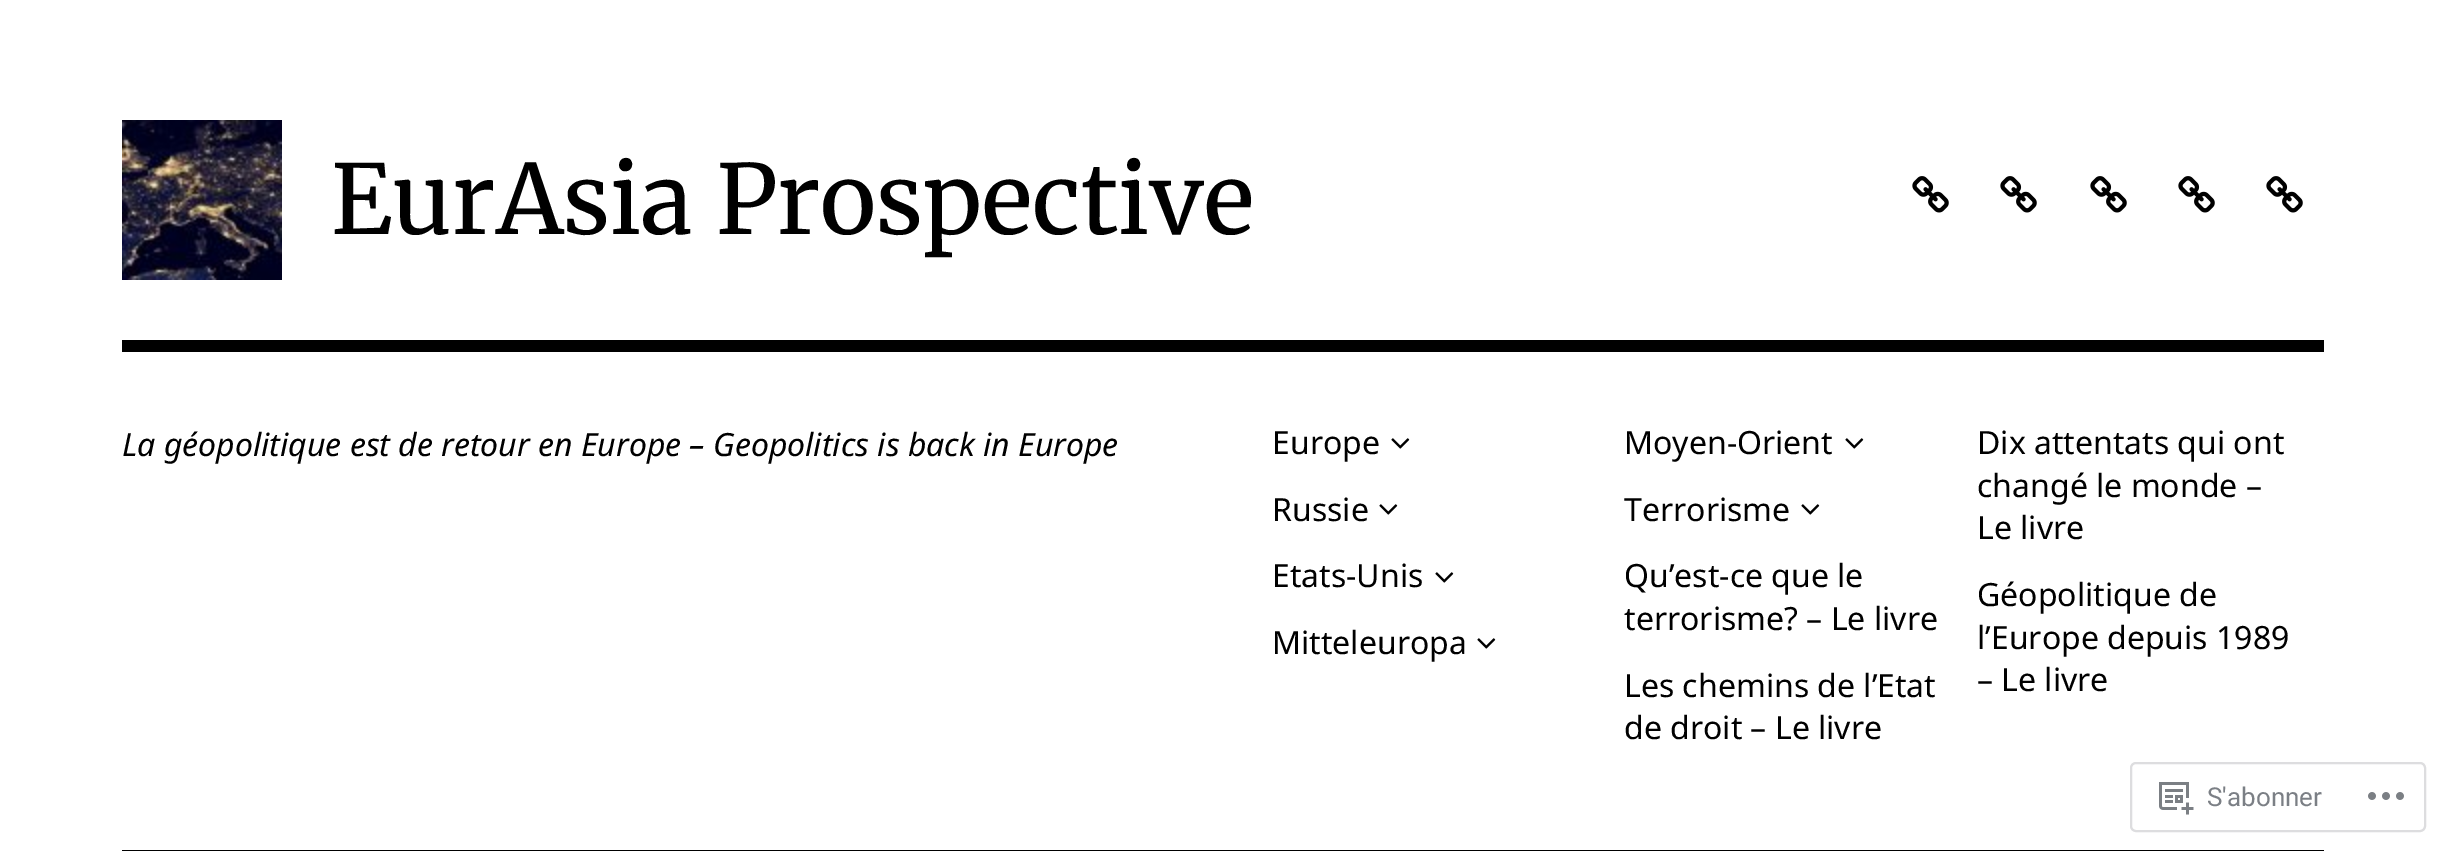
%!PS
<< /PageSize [2446 851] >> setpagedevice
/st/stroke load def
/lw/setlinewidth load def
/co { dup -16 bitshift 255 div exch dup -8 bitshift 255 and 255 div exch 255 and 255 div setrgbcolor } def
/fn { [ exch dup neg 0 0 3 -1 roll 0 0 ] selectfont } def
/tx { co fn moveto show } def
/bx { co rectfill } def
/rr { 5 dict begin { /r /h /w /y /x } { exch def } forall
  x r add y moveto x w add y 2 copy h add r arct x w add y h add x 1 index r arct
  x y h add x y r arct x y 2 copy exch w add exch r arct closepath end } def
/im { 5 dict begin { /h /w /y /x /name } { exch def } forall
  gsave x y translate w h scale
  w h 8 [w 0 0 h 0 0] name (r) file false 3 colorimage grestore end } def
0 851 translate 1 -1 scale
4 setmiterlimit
0 0 2446 851 16#FFFFFF bx
122 340 2202 12 16#000000 bx
(media/1.raw) 122 120 160 160 im
(media/2.raw) 1912 176 37 37 im
(media/2.raw) 2000 176 37 37 im
(media/2.raw) 2090 176 37 37 im
(media/2.raw) 2178 176 37 37 im
(media/2.raw) 2266 176 37 37 im
(media/3.raw) 1391 438 19 11 im
(media/3.raw) 1379 504 19 11 im
(media/3.raw) 1435 572 19 11 im
(media/3.raw) 1477 638 19 11 im
(media/3.raw) 1845 438 19 11 im
(media/3.raw) 1801 504 19 11 im
122 850 2202 1 16#000000 bx
16#DDDDDF co
2 lw
2131 763 294 68 5 rr st
(media/4.raw) 2159 782 35 33 im
(media/5.raw) 2368 792 36 8 im
(EurAsia Prospective) 331 234 /Merriweather-Light 96 16#000000 tx
(La géopolitique est de retour en Europe – Geopolitics is back in Europe) 122 456 /NotoSans-Italic 32 16#000000 tx
(Europe) 1272 454 /NotoSans-Regular 32 16#000000 tx
(Russie) 1272 521 /NotoSans-Regular 32 16#000000 tx
(Etats-Unis) 1272 587 /NotoSans-Regular 32 16#000000 tx
(Mitteleuropa) 1272 654 /NotoSans-Regular 32 16#000000 tx
(Moyen-Orient) 1624 454 /NotoSans-Regular 32 16#000000 tx
(Terrorisme) 1624 521 /NotoSans-Regular 32 16#000000 tx
(Qu’est-ce que le) 1624 587 /NotoSans-Regular 32 16#000000 tx
(terrorisme? – Le livre) 1624 630 /NotoSans-Regular 32 16#000000 tx
(Les chemins de l’Etat) 1624 697 /NotoSans-Regular 32 16#000000 tx
(de droit – Le livre) 1624 739 /NotoSans-Regular 32 16#000000 tx
(Dix attentats qui ont) 1977 454 /NotoSans-Regular 32 16#000000 tx
(changé le monde –) 1977 497 /NotoSans-Regular 32 16#000000 tx
(Le livre) 1977 539 /NotoSans-Regular 32 16#000000 tx
(Géopolitique de) 1977 606 /NotoSans-Regular 32 16#000000 tx
(l’Europe depuis 1989) 1977 649 /NotoSans-Regular 32 16#000000 tx
(– Le livre) 1977 691 /NotoSans-Regular 32 16#000000 tx
(S'abonner) 2207 806 /Roboto-Regular 26 16#7B7F85 tx
showpage
